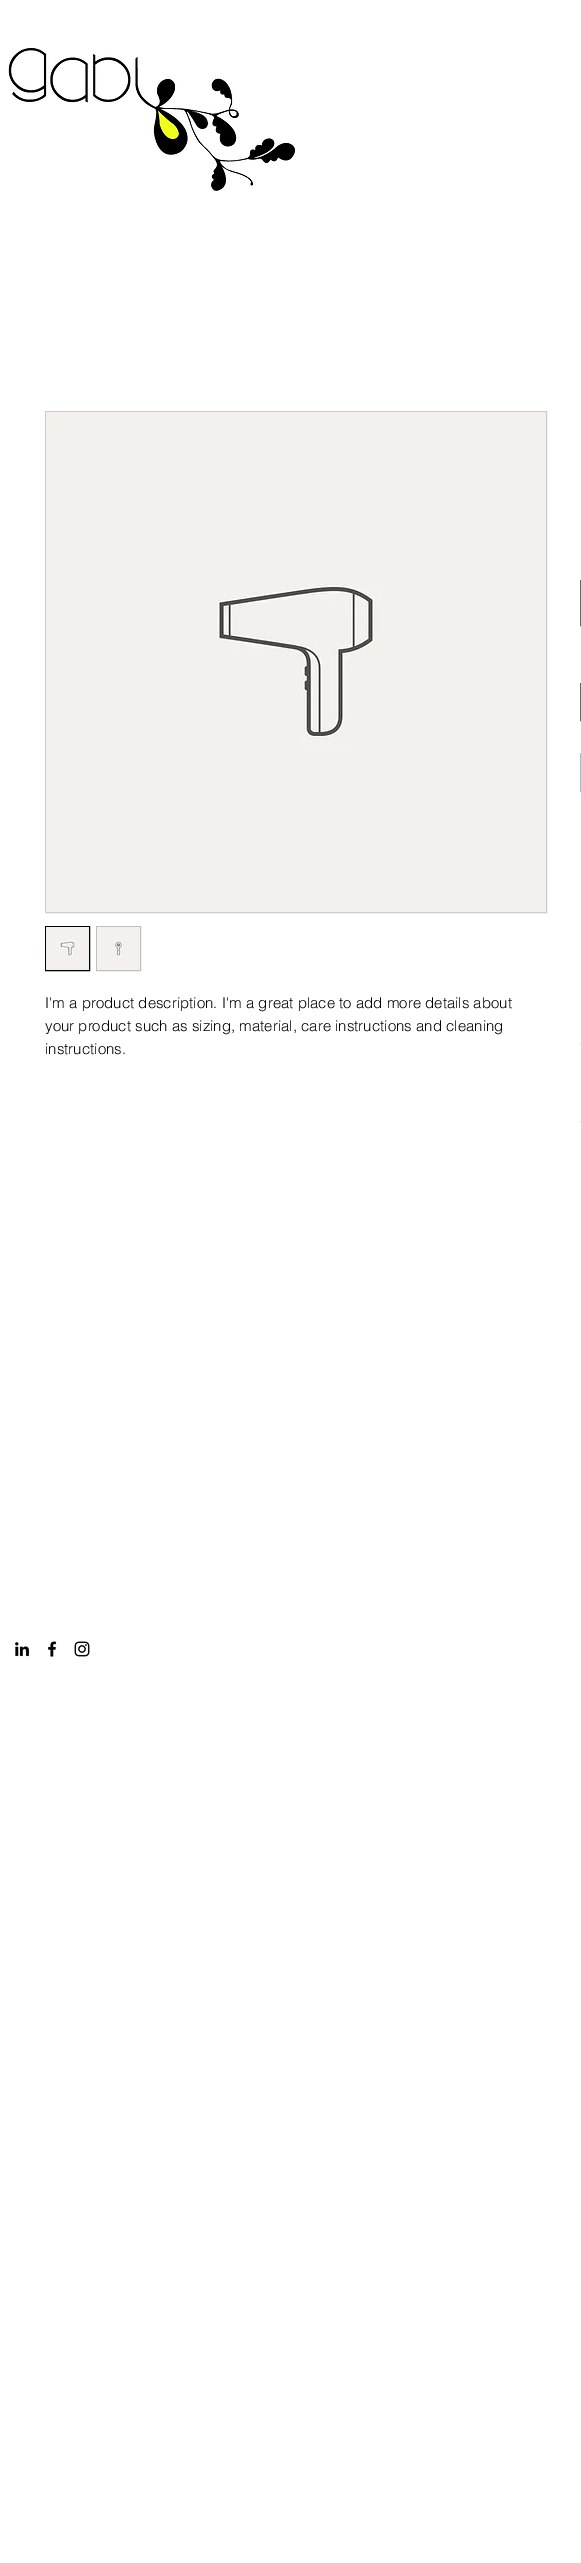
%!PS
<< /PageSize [581 2563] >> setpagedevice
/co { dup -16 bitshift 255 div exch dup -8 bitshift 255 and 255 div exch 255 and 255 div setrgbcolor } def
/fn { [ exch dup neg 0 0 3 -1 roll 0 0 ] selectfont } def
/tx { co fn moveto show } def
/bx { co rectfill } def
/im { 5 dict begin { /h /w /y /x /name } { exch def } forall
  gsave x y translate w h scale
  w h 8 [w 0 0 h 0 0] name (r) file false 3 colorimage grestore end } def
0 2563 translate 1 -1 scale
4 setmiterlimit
0 0 581 2563 16#FFFFFF bx
(media/1.raw) 8 47 287 144 im
16#CCCCCC co
45.5 411.5 501 501 rectstroke
(media/2.raw) 46 412 500 500 im
16#000000 co
45.5 926.5 44 44 rectstroke
(media/3.raw) 46 927 43 43 im
16#BFBFBF co
96.5 926.5 44 44 rectstroke
(media/4.raw) 97 927 43 43 im
16#666666 co
580.5 580.5 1 45 rectstroke
580.5 683.5 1 37 rectstroke
580 753 1 39 16#AABCBF bx
580 1044 1 1 16#CCCCCC bx
580 1121 1 1 16#CCCCCC bx
(media/5.raw) 15 1642 15 15 im
(media/6.raw) 48 1641 9 16 im
(media/7.raw) 74 1641 16 16 im
(I'm a product description. I'm a great place to add more details about) 45 1008 /helvetica-Light 15 16#000000 tx
(your product such as sizing, material, care instructions and cleaning) 45 1031 /helvetica-Light 15 16#000000 tx
(instructions.) 45 1054 /helvetica-Light 15 16#000000 tx
showpage
